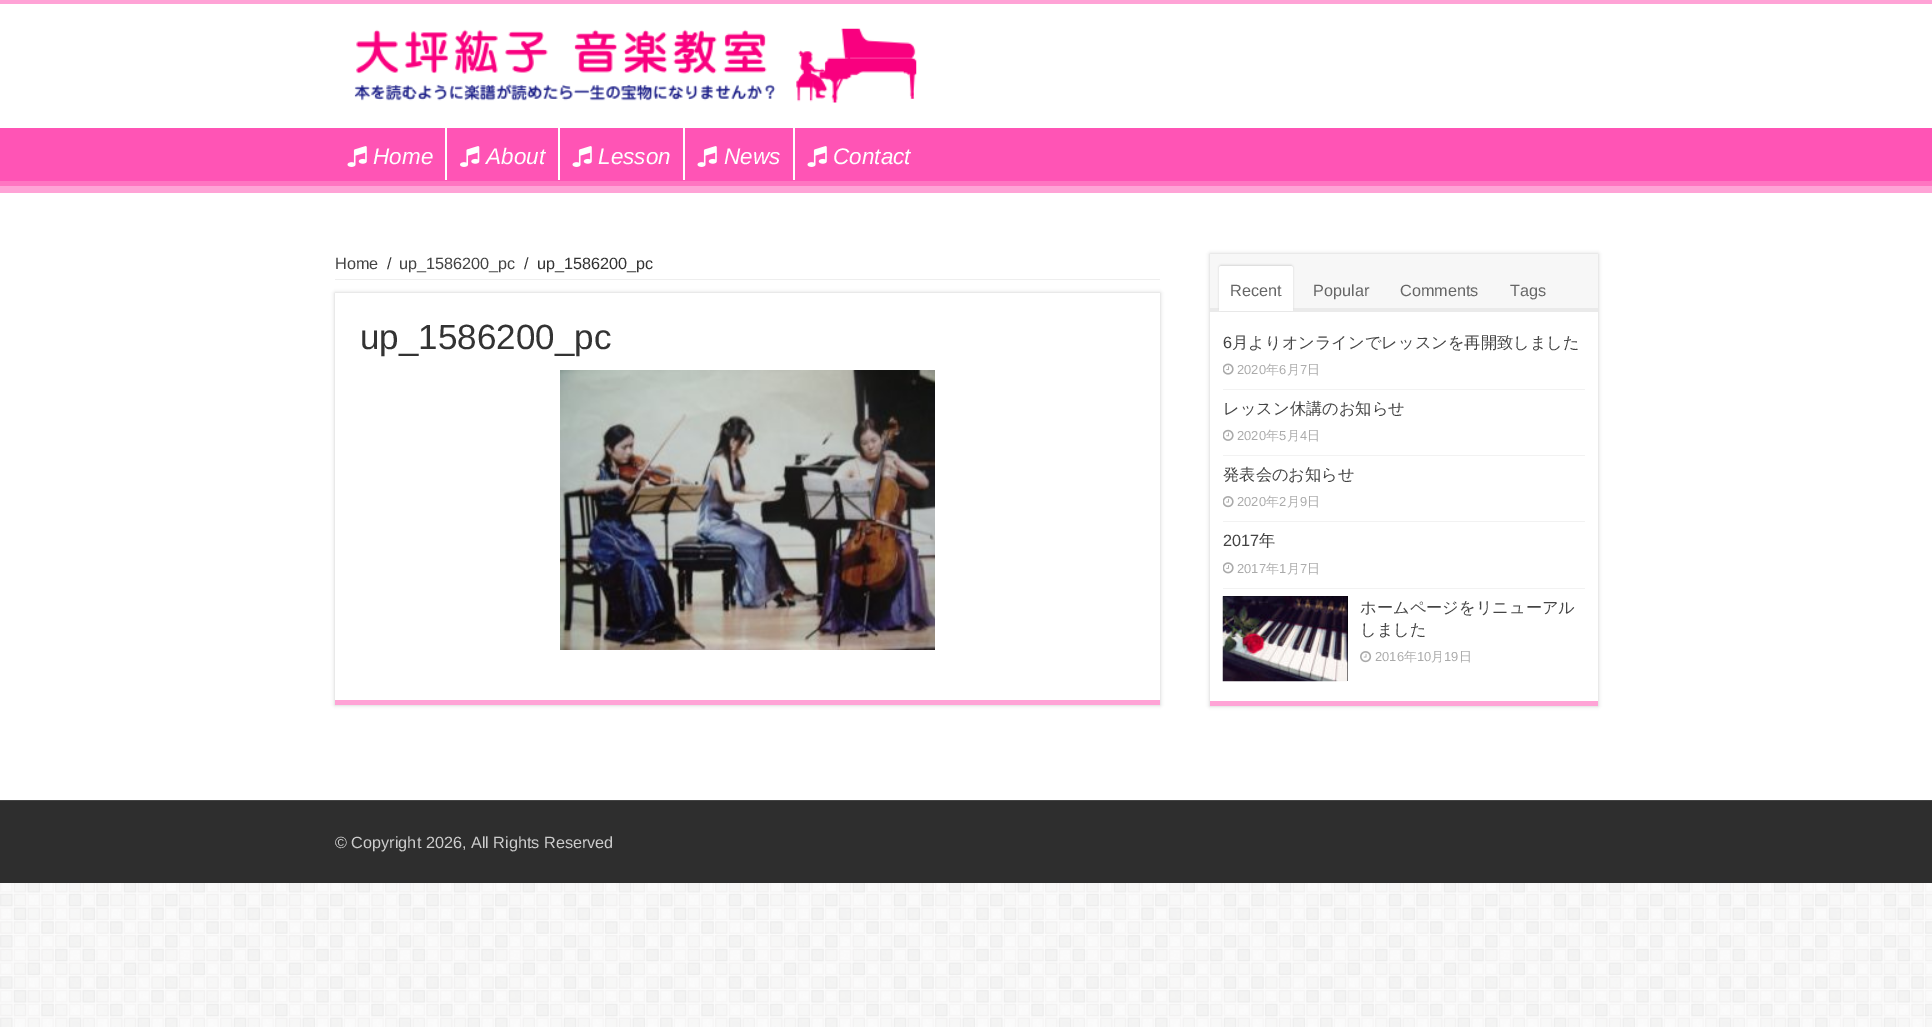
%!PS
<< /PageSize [1932 1027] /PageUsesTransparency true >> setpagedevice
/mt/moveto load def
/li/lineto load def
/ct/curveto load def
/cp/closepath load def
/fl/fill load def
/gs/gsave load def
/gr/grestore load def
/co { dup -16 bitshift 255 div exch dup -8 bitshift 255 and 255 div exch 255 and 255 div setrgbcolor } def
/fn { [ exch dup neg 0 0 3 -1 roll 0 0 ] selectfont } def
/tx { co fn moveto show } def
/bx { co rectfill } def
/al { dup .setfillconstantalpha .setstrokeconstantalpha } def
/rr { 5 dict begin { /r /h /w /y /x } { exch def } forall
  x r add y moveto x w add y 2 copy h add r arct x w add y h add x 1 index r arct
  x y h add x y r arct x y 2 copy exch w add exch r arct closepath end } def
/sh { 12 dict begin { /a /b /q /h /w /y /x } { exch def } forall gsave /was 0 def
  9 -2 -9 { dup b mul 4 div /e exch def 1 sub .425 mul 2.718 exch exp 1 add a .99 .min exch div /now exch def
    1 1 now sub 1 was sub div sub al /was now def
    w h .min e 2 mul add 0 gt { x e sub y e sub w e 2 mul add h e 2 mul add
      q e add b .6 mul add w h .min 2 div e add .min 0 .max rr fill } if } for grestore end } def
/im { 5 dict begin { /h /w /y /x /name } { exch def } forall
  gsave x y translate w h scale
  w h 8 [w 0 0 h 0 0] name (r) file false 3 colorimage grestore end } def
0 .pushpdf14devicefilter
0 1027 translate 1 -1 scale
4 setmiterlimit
0 0 1932 1027 16#FFFFFF bx
(media/1.raw) 0 883 1932 144 im
0 0 1932 4 16#FFA3D6 bx
(media/2.raw) 354 28 563 75 im
0 128 1932 53 16#FF54B5 bx
gs
0 128 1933 58 rectclip
16#FF75C1 co
-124 4 mt 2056 4 li 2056 310 li -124 310 li cp -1 120 mt 1931 120 li 1932 120 1932 121 1932 121 ct 1932 180 li 1932 181 1932 181 1931 181 ct -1 181 li -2 181 -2 181 -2 180 ct -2 121 li -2 121 -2 120 -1 120 ct cp eofill
gr
0 186 1932 7 16#FFA3D6 bx
(media/3.raw) 347 146 20 21 im
445 128 2 52 16#FFFFFF bx
(media/4.raw) 460 146 20 21 im
558 128 2 52 16#FFFFFF bx
(media/3.raw) 572 146 20 21 im
683 128 2 52 16#FFFFFF bx
(media/3.raw) 697 146 20 21 im
793 128 2 52 16#FFFFFF bx
(media/3.raw) 807 146 20 21 im
335 279 825 1 16#EEEEEE bx
gs
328 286 mt 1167 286 li 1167 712 li 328 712 li cp 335 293 mt 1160 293 li 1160 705 li 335 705 li cp eoclip newpath
16#CACACA co
335 293 825 412 0 2 1 sh
gr
335 700 825 5 16#FFA3D6 bx
(media/5.raw) 560 370 375 280 im
16#CACACA co
1210 254 388 452 0 2 1 sh
1210 312 388 389 16#FFFFFF bx
1210 701 388 5 16#FFA3D6 bx
1210 254 388 54 16#F7F7F7 bx
1210 308 388 4 16#EAEAEA bx
16#D4D4D4 co
1219 265 74 45 2.5 1 1 sh
16#FFFFFF co
1221.5 266 mt 1290.5 266 li 1292 266 1293 267 1293 268.5 ct 1293 311 li 1219 311 li 1219 268.5 li 1219 267 1220 266 1221.5 266 ct cp fl
1223 389 362 1 16#F2F2F2 bx
(media/6.raw) 1223 363 11 12 im
1223 455 362 1 16#F2F2F2 bx
(media/7.raw) 1223 429 11 12 im
1223 521 362 1 16#F2F2F2 bx
(media/8.raw) 1223 496 11 12 im
1223 588 362 1 16#F2F2F2 bx
(media/9.raw) 1223 562 11 12 im
1223 596 125 85 16#000000 bx
(media/10.raw) 1222 596 126 86 im
(media/11.raw) 1360 651 12 12 im
0 801 1932 82 16#2E2E2E bx
0 800 1932 1 16#444444 bx
(Home) 373 164 /LiberationSans-Italic 22.5 16#FFFFFF tx
(About) 486 164 /LiberationSans-Italic 22.5 16#FFFFFF tx
(Lesson) 598 164 /LiberationSans-Italic 22.5 16#FFFFFF tx
(News) 724 164 /LiberationSans-Italic 22.5 16#FFFFFF tx
(Contact) 833 164 /LiberationSans-Italic 22.5 16#FFFFFF tx
(Home) 335 269 /LiberationSans-Regular 16.25 16#444444 tx
(/) 387 269 /LiberationSans-Regular 16.25 16#333333 tx
(up_1586200_pc) 399 269 /LiberationSans-Regular 16.25 16#444444 tx
(/) 524 269 /LiberationSans-Regular 16.25 16#333333 tx
(up_1586200_pc) 537 269 /LiberationSans-Regular 16.25 16#333333 tx
(up_1586200_pc) 360 349 /LiberationSans-Regular 35 16#333333 tx
(Recent) 1230 296 /LiberationSans-Regular 16.25 16#666666 tx
(Popular) 1313 296 /LiberationSans-Regular 16.25 16#666666 tx
(Comments) 1400 296 /LiberationSans-Regular 16.25 16#666666 tx
(Tags) 1510 296 /LiberationSans-Regular 16.25 16#666666 tx
(6) 1223 348 /LiberationSans-Regular 16.25 16#444444 tx
(月よりオンラインでレッスンを再開致しました) 1232 348 /WenQuanYiZenHei-Medium 16.25 16#444444 tx
(2020) 1237 374 /LiberationSans-Regular 13 16#AAAAAA tx
(年) 1266 374 /WenQuanYiZenHei-Medium 13 16#AAAAAA tx
(6) 1279 374 /LiberationSans-Regular 13 16#AAAAAA tx
(月) 1287 374 /WenQuanYiZenHei-Medium 13 16#AAAAAA tx
(7) 1300 374 /LiberationSans-Regular 13 16#AAAAAA tx
(日) 1307 374 /WenQuanYiZenHei-Medium 13 16#AAAAAA tx
(レッスン休講のお知らせ) 1223 414 /WenQuanYiZenHei-Medium 16.25 16#444444 tx
(2020) 1237 440 /LiberationSans-Regular 13 16#AAAAAA tx
(年) 1266 440 /WenQuanYiZenHei-Medium 13 16#AAAAAA tx
(5) 1279 440 /LiberationSans-Regular 13 16#AAAAAA tx
(月) 1287 440 /WenQuanYiZenHei-Medium 13 16#AAAAAA tx
(4) 1300 440 /LiberationSans-Regular 13 16#AAAAAA tx
(日) 1307 440 /WenQuanYiZenHei-Medium 13 16#AAAAAA tx
(発表会のお知らせ) 1223 480 /WenQuanYiZenHei-Medium 16.25 16#444444 tx
(2020) 1237 506 /LiberationSans-Regular 13 16#AAAAAA tx
(年) 1266 506 /WenQuanYiZenHei-Medium 13 16#AAAAAA tx
(2) 1279 506 /LiberationSans-Regular 13 16#AAAAAA tx
(月) 1287 506 /WenQuanYiZenHei-Medium 13 16#AAAAAA tx
(9) 1300 506 /LiberationSans-Regular 13 16#AAAAAA tx
(日) 1307 506 /WenQuanYiZenHei-Medium 13 16#AAAAAA tx
(2017) 1223 546 /LiberationSans-Regular 16.25 16#444444 tx
(年) 1259 546 /WenQuanYiZenHei-Medium 16.25 16#444444 tx
(2017) 1237 573 /LiberationSans-Regular 13 16#AAAAAA tx
(年) 1266 573 /WenQuanYiZenHei-Medium 13 16#AAAAAA tx
(1) 1279 573 /LiberationSans-Regular 13 16#AAAAAA tx
(月) 1287 573 /WenQuanYiZenHei-Medium 13 16#AAAAAA tx
(7) 1300 573 /LiberationSans-Regular 13 16#AAAAAA tx
(日) 1307 573 /WenQuanYiZenHei-Medium 13 16#AAAAAA tx
(ホームページをリニューアル) 1360 613 /WenQuanYiZenHei-Medium 16.25 16#444444 tx
(しました) 1360 635 /WenQuanYiZenHei-Medium 16.25 16#444444 tx
(2016) 1375 661 /LiberationSans-Regular 13 16#AAAAAA tx
(年) 1404 661 /WenQuanYiZenHei-Medium 13 16#AAAAAA tx
(10) 1417 661 /LiberationSans-Regular 13 16#AAAAAA tx
(月) 1431 661 /WenQuanYiZenHei-Medium 13 16#AAAAAA tx
(19) 1444 661 /LiberationSans-Regular 13 16#AAAAAA tx
(日) 1459 661 /WenQuanYiZenHei-Medium 13 16#AAAAAA tx
(© Copyright 2026, All Rights Reserved) 335 848 /LiberationSans-Regular 16.25 16#CCCCCC tx
.poppdf14devicefilter showpage
